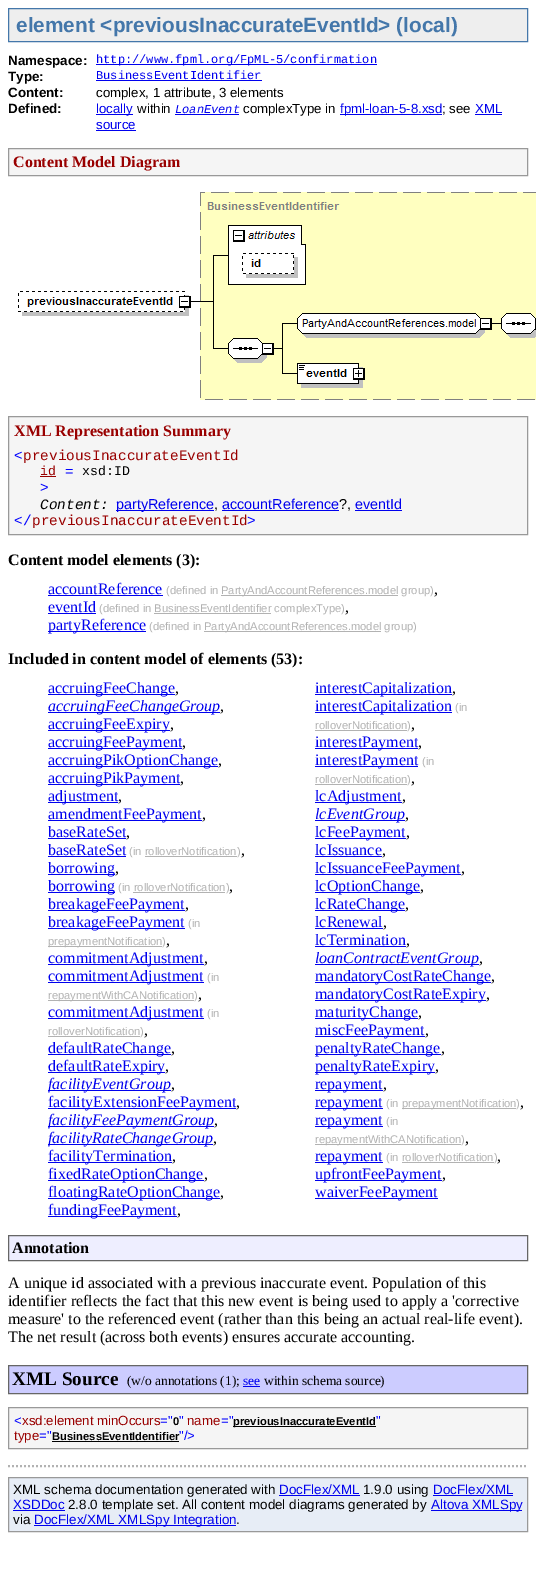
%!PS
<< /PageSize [536 1574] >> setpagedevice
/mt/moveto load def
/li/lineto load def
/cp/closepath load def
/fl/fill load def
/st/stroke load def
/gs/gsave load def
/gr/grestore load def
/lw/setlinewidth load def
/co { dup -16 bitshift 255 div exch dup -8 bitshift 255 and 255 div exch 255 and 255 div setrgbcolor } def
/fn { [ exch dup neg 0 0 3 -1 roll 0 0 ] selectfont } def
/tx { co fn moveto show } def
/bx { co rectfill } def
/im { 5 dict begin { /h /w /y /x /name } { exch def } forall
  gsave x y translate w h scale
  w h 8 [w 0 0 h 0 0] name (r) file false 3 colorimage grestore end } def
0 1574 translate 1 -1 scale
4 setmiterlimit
0 0 536 1574 16#FFFFFF bx
16#EEEEEE co
8.5 8.5 mt 527.5 8.5 li 527.5 41.5 li 8.5 41.5 li cp gs fl gr
16#4477AA co
st
96 64 281 1 16#0000EE bx
96 80 166 1 16#0000EE bx
96 114 37 1 16#0000EE bx
175 114 64 1 16#0000EE bx
340 114 102 1 16#0000EE bx
475 114 27 1 16#0000EE bx
96 130 40 1 16#0000EE bx
16#F5F5F5 co
8.5 148.5 mt 527.5 148.5 li 527.5 175.5 li 8.5 175.5 li cp gs fl gr
16#999999 co
st
(media/1.raw) 18 192 518 208 im
16#F5F5F5 co
8.5 416.5 mt 527.5 416.5 li 527.5 534.5 li 8.5 534.5 li cp gs fl gr
16#999999 co
st
40 476 16 1 16#990000 bx
116 510 98 1 16#0000EE bx
222 510 117 1 16#0000EE bx
355 510 47 1 16#0000EE bx
48 595 115 1 16#0000EE bx
221 595 177 1 16#B2B2B2 bx
48 613 48 1 16#0000EE bx
154 613 117 1 16#B2B2B2 bx
48 631 98 1 16#0000EE bx
204 631 177 1 16#B2B2B2 bx
48 694 127 1 16#0000EE bx
48 712 172 1 16#0000EE bx
48 730 122 1 16#0000EE bx
48 748 134 1 16#0000EE bx
48 766 170 1 16#0000EE bx
48 784 132 1 16#0000EE bx
48 802 70 1 16#0000EE bx
48 820 154 1 16#0000EE bx
48 838 78 1 16#0000EE bx
48 856 78 1 16#0000EE bx
145 856 92 1 16#B2B2B2 bx
48 874 67 1 16#0000EE bx
48 892 67 1 16#0000EE bx
133 892 92 1 16#B2B2B2 bx
48 910 137 1 16#0000EE bx
48 928 137 1 16#0000EE bx
48 946 114 1 16#B2B2B2 bx
48 964 156 1 16#0000EE bx
48 982 156 1 16#0000EE bx
48 1000 146 1 16#B2B2B2 bx
48 1018 156 1 16#0000EE bx
48 1036 92 1 16#B2B2B2 bx
48 1054 123 1 16#0000EE bx
48 1072 117 1 16#0000EE bx
48 1090 123 1 16#0000EE bx
48 1108 188 1 16#0000EE bx
48 1126 166 1 16#0000EE bx
48 1144 165 1 16#0000EE bx
48 1162 124 1 16#0000EE bx
48 1180 156 1 16#0000EE bx
48 1198 172 1 16#0000EE bx
48 1216 129 1 16#0000EE bx
315 694 137 1 16#0000EE bx
315 712 137 1 16#0000EE bx
315 730 92 1 16#B2B2B2 bx
315 748 103 1 16#0000EE bx
315 766 103 1 16#0000EE bx
315 784 92 1 16#B2B2B2 bx
315 802 87 1 16#0000EE bx
315 820 90 1 16#0000EE bx
315 838 91 1 16#0000EE bx
315 856 67 1 16#0000EE bx
315 874 146 1 16#0000EE bx
315 892 105 1 16#0000EE bx
315 910 90 1 16#0000EE bx
315 928 68 1 16#0000EE bx
315 946 91 1 16#0000EE bx
315 964 164 1 16#0000EE bx
315 982 176 1 16#0000EE bx
315 1000 171 1 16#0000EE bx
315 1018 103 1 16#0000EE bx
315 1036 110 1 16#0000EE bx
315 1054 126 1 16#0000EE bx
315 1072 120 1 16#0000EE bx
315 1090 68 1 16#0000EE bx
315 1108 68 1 16#0000EE bx
402 1108 114 1 16#B2B2B2 bx
315 1126 68 1 16#0000EE bx
315 1144 146 1 16#B2B2B2 bx
315 1162 68 1 16#0000EE bx
402 1162 92 1 16#B2B2B2 bx
315 1180 127 1 16#0000EE bx
315 1198 123 1 16#0000EE bx
16#EEEEFF co
8.5 1235.5 mt 527.5 1235.5 li 527.5 1260.5 li 8.5 1260.5 li cp gs fl gr
16#666666 co
st
16#CCCCFF co
8.5 1365.5 mt 527.5 1365.5 li 527.5 1393.5 li 8.5 1393.5 li cp gs fl gr
16#666666 co
st
243 1386 17 1 16#0000EE bx
16#F5F5F5 co
8.5 1407.5 mt 527.5 1407.5 li 527.5 1448.5 li 8.5 1448.5 li cp gs fl gr
16#999999 co
st
233 1426 143 1 16#000000 bx
52 1441 127 1 16#000000 bx
16#B2B2B2 co
2 lw
[2 2] 0 setdash
8 1466 mt 528 1466 li st
16#E7EDF6 co
8.5 1477.5 mt 527.5 1477.5 li 527.5 1531.5 li 8.5 1531.5 li cp gs fl gr
16#999999 co
1 lw
[] 0 setdash
st
279 1495 81 1 16#0000EE bx
433 1495 80 1 16#0000EE bx
13 1510 52 1 16#0000EE bx
431 1510 91 1 16#0000EE bx
34 1525 202 1 16#0000EE bx
(element <previousInaccurateEventId> \(local\)) 16 32 /LiberationSans-Bold 20.8 16#4477AA tx
(Namespace:) 8 65 /LiberationSans-Bold 13.45 16#000000 tx
(http://www.fpml.org/FpML-5/confirmation) 96 63 /LiberationMono-Regular 12 16#0000EE tx
(Type:) 8 81 /LiberationSans-Bold 13.45 16#000000 tx
(BusinessEventIdentifier) 96 79 /LiberationMono-Regular 12 16#0000EE tx
(Content:) 8 97 /LiberationSans-Bold 13.45 16#000000 tx
(complex, 1 attribute, 3 elements) 96 97 /LiberationSans-Regular 13.25 16#000000 tx
(Defined:) 8 113 /LiberationSans-Bold 13.45 16#000000 tx
(locally) 96 113 /LiberationSans-Regular 13.25 16#0000EE tx
(within) 137 113 /LiberationSans-Regular 13.25 16#000000 tx
(LoanEvent) 175 113 /LiberationMono-Italic 12 16#0000EE tx
(complexType in) 243 113 /LiberationSans-Regular 13.25 16#000000 tx
(fpml-loan-5-8.xsd) 340 113 /LiberationSans-Regular 13.25 16#0000EE tx
(; see) 442 113 /LiberationSans-Regular 13.25 16#000000 tx
(XML) 475 113 /LiberationSans-Regular 13.25 16#0000EE tx
(source) 96 129 /LiberationSans-Regular 13.25 16#0000EE tx
(Content Model Diagram) 13 167 /LiberationSerif-Bold 16 16#990000 tx
(XML Representation Summary) 14 436 /LiberationSerif-Bold 16 16#990000 tx
(<) 14 460 /LiberationMono-Regular 14.4 16#0000FF tx
(previousInaccurateEventId) 23 460 /LiberationMono-Regular 14.4 16#990000 tx
(id) 40 475 /LiberationMono-Regular 13.25 16#990000 tx
(=) 65 476 /LiberationMono-Regular 14.4 16#0000FF tx
(xsd:ID) 82 475 /LiberationMono-Regular 13.25 16#000000 tx
(>) 40 492 /LiberationMono-Regular 14.4 16#0000FF tx
(Content:) 40 509 /LiberationMono-Italic 14.4 16#000000 tx
(partyReference) 116 509 /LiberationSans-Regular 14.4 16#0000EE tx
(,) 214 509 /LiberationSans-Regular 14.4 16#000000 tx
(accountReference) 222 509 /LiberationSans-Regular 14.4 16#0000EE tx
(?,) 339 509 /LiberationSans-Regular 14.4 16#000000 tx
(eventId) 355 509 /LiberationSans-Regular 14.4 16#0000EE tx
(</) 14 525 /LiberationMono-Regular 14.4 16#0000FF tx
(previousInaccurateEventId) 32 525 /LiberationMono-Regular 14.4 16#990000 tx
(>) 247 525 /LiberationMono-Regular 14.4 16#0000FF tx
(Content model elements \(3\):) 8 565 /LiberationSerif-Bold 16 16#000000 tx
(accountReference) 48 594 /LiberationSerif-Regular 16 16#0000EE tx
(\(defined in) 166 594 /LiberationSans-Regular 11.2 16#B2B2B2 tx
(PartyAndAccountReferences.model group\)) 221 594 /LiberationSans-Regular 11.2 16#B2B2B2 tx
(,) 434 594 /LiberationSerif-Regular 16 16#000000 tx
(eventId) 48 612 /LiberationSerif-Regular 16 16#0000EE tx
(\(defined in BusinessEventIdentifier complexType\)) 99 612 /LiberationSans-Regular 11.2 16#B2B2B2 tx
(,) 345 612 /LiberationSerif-Regular 16 16#000000 tx
(partyReference) 48 630 /LiberationSerif-Regular 16 16#0000EE tx
(\(defined in) 149 630 /LiberationSans-Regular 11.2 16#B2B2B2 tx
(PartyAndAccountReferences.model group\)) 204 630 /LiberationSans-Regular 11.2 16#B2B2B2 tx
(Included in content model of elements \(53\):) 8 664 /LiberationSerif-Bold 16 16#000000 tx
(accruingFeeChange) 48 693 /LiberationSerif-Regular 16 16#0000EE tx
(,) 175 693 /LiberationSerif-Regular 16 16#000000 tx
(accruingFeeChangeGroup) 48 711 /LiberationSerif-Italic 16 16#0000EE tx
(,) 220 711 /LiberationSerif-Regular 16 16#000000 tx
(accruingFeeExpiry) 48 729 /LiberationSerif-Regular 16 16#0000EE tx
(,) 170 729 /LiberationSerif-Regular 16 16#000000 tx
(accruingFeePayment) 48 747 /LiberationSerif-Regular 16 16#0000EE tx
(,) 182 747 /LiberationSerif-Regular 16 16#000000 tx
(accruingPikOptionChange) 48 765 /LiberationSerif-Regular 16 16#0000EE tx
(,) 218 765 /LiberationSerif-Regular 16 16#000000 tx
(accruingPikPayment) 48 783 /LiberationSerif-Regular 16 16#0000EE tx
(,) 180 783 /LiberationSerif-Regular 16 16#000000 tx
(adjustment) 48 801 /LiberationSerif-Regular 16 16#0000EE tx
(,) 118 801 /LiberationSerif-Regular 16 16#000000 tx
(amendmentFeePayment) 48 819 /LiberationSerif-Regular 16 16#0000EE tx
(,) 202 819 /LiberationSerif-Regular 16 16#000000 tx
(baseRateSet) 48 837 /LiberationSerif-Regular 16 16#0000EE tx
(,) 126 837 /LiberationSerif-Regular 16 16#000000 tx
(baseRateSet) 48 855 /LiberationSerif-Regular 16 16#0000EE tx
(\(in rolloverNotification) 129 855 /LiberationSans-Regular 11.2 16#B2B2B2 tx
(\)) 237 855 /LiberationSans-Regular 11.2 16#B2B2B2 tx
(,) 241 855 /LiberationSerif-Regular 16 16#000000 tx
(borrowing) 48 873 /LiberationSerif-Regular 16 16#0000EE tx
(,) 115 873 /LiberationSerif-Regular 16 16#000000 tx
(borrowing) 48 891 /LiberationSerif-Regular 16 16#0000EE tx
(\(in rolloverNotification\)) 118 891 /LiberationSans-Regular 11.2 16#B2B2B2 tx
(,) 229 891 /LiberationSerif-Regular 16 16#000000 tx
(breakageFeePayment) 48 909 /LiberationSerif-Regular 16 16#0000EE tx
(,) 185 909 /LiberationSerif-Regular 16 16#000000 tx
(breakageFeePayment) 48 927 /LiberationSerif-Regular 16 16#0000EE tx
(\(in) 188 927 /LiberationSans-Regular 11.2 16#B2B2B2 tx
(prepaymentNotification\)) 48 945 /LiberationSans-Regular 11.2 16#B2B2B2 tx
(,) 166 945 /LiberationSerif-Regular 16 16#000000 tx
(commitmentAdjustment) 48 963 /LiberationSerif-Regular 16 16#0000EE tx
(,) 204 963 /LiberationSerif-Regular 16 16#000000 tx
(commitmentAdjustment) 48 981 /LiberationSerif-Regular 16 16#0000EE tx
(\(in) 207 981 /LiberationSans-Regular 11.2 16#B2B2B2 tx
(repaymentWithCANotification\)) 48 999 /LiberationSans-Regular 11.2 16#B2B2B2 tx
(,) 198 999 /LiberationSerif-Regular 16 16#000000 tx
(commitmentAdjustment) 48 1017 /LiberationSerif-Regular 16 16#0000EE tx
(\(in) 207 1017 /LiberationSans-Regular 11.2 16#B2B2B2 tx
(rolloverNotification\)) 48 1035 /LiberationSans-Regular 11.2 16#B2B2B2 tx
(,) 144 1035 /LiberationSerif-Regular 16 16#000000 tx
(defaultRateChange) 48 1053 /LiberationSerif-Regular 16 16#0000EE tx
(,) 171 1053 /LiberationSerif-Regular 16 16#000000 tx
(defaultRateExpiry) 48 1071 /LiberationSerif-Regular 16 16#0000EE tx
(,) 165 1071 /LiberationSerif-Regular 16 16#000000 tx
(facilityEventGroup) 48 1089 /LiberationSerif-Italic 16 16#0000EE tx
(,) 171 1089 /LiberationSerif-Regular 16 16#000000 tx
(facilityExtensionFeePayment) 48 1107 /LiberationSerif-Regular 16 16#0000EE tx
(,) 236 1107 /LiberationSerif-Regular 16 16#000000 tx
(facilityFeePaymentGroup) 48 1125 /LiberationSerif-Italic 16 16#0000EE tx
(,) 214 1125 /LiberationSerif-Regular 16 16#000000 tx
(facilityRateChangeGroup) 48 1143 /LiberationSerif-Italic 16 16#0000EE tx
(,) 213 1143 /LiberationSerif-Regular 16 16#000000 tx
(facilityTermination) 48 1161 /LiberationSerif-Regular 16 16#0000EE tx
(,) 172 1161 /LiberationSerif-Regular 16 16#000000 tx
(fixedRateOptionChange) 48 1179 /LiberationSerif-Regular 16 16#0000EE tx
(,) 204 1179 /LiberationSerif-Regular 16 16#000000 tx
(floatingRateOptionChange) 48 1197 /LiberationSerif-Regular 16 16#0000EE tx
(,) 220 1197 /LiberationSerif-Regular 16 16#000000 tx
(fundingFeePayment) 48 1215 /LiberationSerif-Regular 16 16#0000EE tx
(,) 177 1215 /LiberationSerif-Regular 16 16#000000 tx
(interestCapitalization) 315 693 /LiberationSerif-Regular 16 16#0000EE tx
(,) 452 693 /LiberationSerif-Regular 16 16#000000 tx
(interestCapitalization) 315 711 /LiberationSerif-Regular 16 16#0000EE tx
(\(in) 455 711 /LiberationSans-Regular 11.2 16#B2B2B2 tx
(rolloverNotification\)) 315 729 /LiberationSans-Regular 11.2 16#B2B2B2 tx
(,) 411 729 /LiberationSerif-Regular 16 16#000000 tx
(interestPayment) 315 747 /LiberationSerif-Regular 16 16#0000EE tx
(,) 418 747 /LiberationSerif-Regular 16 16#000000 tx
(interestPayment) 315 765 /LiberationSerif-Regular 16 16#0000EE tx
(\(in) 422 765 /LiberationSans-Regular 11.2 16#B2B2B2 tx
(rolloverNotification\)) 315 783 /LiberationSans-Regular 11.2 16#B2B2B2 tx
(,) 411 783 /LiberationSerif-Regular 16 16#000000 tx
(lcAdjustment) 315 801 /LiberationSerif-Regular 16 16#0000EE tx
(,) 402 801 /LiberationSerif-Regular 16 16#000000 tx
(lcEventGroup) 315 819 /LiberationSerif-Italic 16 16#0000EE tx
(,) 405 819 /LiberationSerif-Regular 16 16#000000 tx
(lcFeePayment) 315 837 /LiberationSerif-Regular 16 16#0000EE tx
(,) 406 837 /LiberationSerif-Regular 16 16#000000 tx
(lcIssuance) 315 855 /LiberationSerif-Regular 16 16#0000EE tx
(,) 382 855 /LiberationSerif-Regular 16 16#000000 tx
(lcIssuanceFeePayment) 315 873 /LiberationSerif-Regular 16 16#0000EE tx
(,) 461 873 /LiberationSerif-Regular 16 16#000000 tx
(lcOptionChange) 315 891 /LiberationSerif-Regular 16 16#0000EE tx
(,) 420 891 /LiberationSerif-Regular 16 16#000000 tx
(lcRateChange) 315 909 /LiberationSerif-Regular 16 16#0000EE tx
(,) 405 909 /LiberationSerif-Regular 16 16#000000 tx
(lcRenewal) 315 927 /LiberationSerif-Regular 16 16#0000EE tx
(,) 383 927 /LiberationSerif-Regular 16 16#000000 tx
(lcTermination) 315 945 /LiberationSerif-Regular 16 16#0000EE tx
(,) 406 945 /LiberationSerif-Regular 16 16#000000 tx
(loanContractEventGroup) 315 963 /LiberationSerif-Italic 16 16#0000EE tx
(,) 479 963 /LiberationSerif-Regular 16 16#000000 tx
(mandatoryCostRateChange) 315 981 /LiberationSerif-Regular 16 16#0000EE tx
(,) 491 981 /LiberationSerif-Regular 16 16#000000 tx
(mandatoryCostRateExpiry) 315 999 /LiberationSerif-Regular 16 16#0000EE tx
(,) 486 999 /LiberationSerif-Regular 16 16#000000 tx
(maturityChange) 315 1017 /LiberationSerif-Regular 16 16#0000EE tx
(,) 418 1017 /LiberationSerif-Regular 16 16#000000 tx
(miscFeePayment) 315 1035 /LiberationSerif-Regular 16 16#0000EE tx
(,) 425 1035 /LiberationSerif-Regular 16 16#000000 tx
(penaltyRateChange) 315 1053 /LiberationSerif-Regular 16 16#0000EE tx
(,) 441 1053 /LiberationSerif-Regular 16 16#000000 tx
(penaltyRateExpiry) 315 1071 /LiberationSerif-Regular 16 16#0000EE tx
(,) 435 1071 /LiberationSerif-Regular 16 16#000000 tx
(repayment) 315 1089 /LiberationSerif-Regular 16 16#0000EE tx
(,) 383 1089 /LiberationSerif-Regular 16 16#000000 tx
(repayment) 315 1107 /LiberationSerif-Regular 16 16#0000EE tx
(\(in) 386 1107 /LiberationSans-Regular 11.2 16#B2B2B2 tx
(prepaymentNotification\)) 402 1107 /LiberationSans-Regular 11.2 16#B2B2B2 tx
(,) 520 1107 /LiberationSerif-Regular 16 16#000000 tx
(repayment) 315 1125 /LiberationSerif-Regular 16 16#0000EE tx
(\(in) 386 1125 /LiberationSans-Regular 11.2 16#B2B2B2 tx
(repaymentWithCANotification\)) 315 1143 /LiberationSans-Regular 11.2 16#B2B2B2 tx
(,) 465 1143 /LiberationSerif-Regular 16 16#000000 tx
(repayment) 315 1161 /LiberationSerif-Regular 16 16#0000EE tx
(\(in rolloverNotification) 386 1161 /LiberationSans-Regular 11.2 16#B2B2B2 tx
(\)) 494 1161 /LiberationSans-Regular 11.2 16#B2B2B2 tx
(,) 497 1161 /LiberationSerif-Regular 16 16#000000 tx
(upfrontFeePayment) 315 1179 /LiberationSerif-Regular 16 16#0000EE tx
(,) 442 1179 /LiberationSerif-Regular 16 16#000000 tx
(waiverFeePayment) 315 1197 /LiberationSerif-Regular 16 16#0000EE tx
(Annotation) 12 1253 /LiberationSerif-Bold 16 16#000000 tx
(A unique id associated with a previous inaccurate event. Population of this) 8 1288 /LiberationSerif-Regular 16 16#000000 tx
(identifier reflects the fact that this new event is being used to apply a 'corrective) 8 1306 /LiberationSerif-Regular 16 16#000000 tx
(measure' to the referenced event \(rather than this being an actual real-life event\).) 8 1324 /LiberationSerif-Regular 16 16#000000 tx
(The net result \(across both events\) ensures accurate accounting.) 8 1342 /LiberationSerif-Regular 16 16#000000 tx
(XML Source) 12 1385 /LiberationSerif-Bold 19.25 16#000000 tx
(\(w/o annotations \(1\);) 127 1385 /LiberationSerif-Regular 13.45 16#000000 tx
(see) 243 1385 /LiberationSerif-Regular 13.45 16#0000EE tx
(within schema source\)) 264 1385 /LiberationSerif-Regular 13.45 16#000000 tx
(<) 14 1425 /LiberationSans-Regular 13.25 16#0000FF tx
(xsd:element minOccurs) 22 1425 /LiberationSans-Regular 13.25 16#990000 tx
(=") 160 1425 /LiberationSans-Regular 13.25 16#0000FF tx
(0) 173 1425 /LiberationSans-Bold 11.2 16#000000 tx
(") 179 1425 /LiberationSans-Regular 13.25 16#0000FF tx
(name) 187 1425 /LiberationSans-Regular 13.25 16#990000 tx
(=") 221 1425 /LiberationSans-Regular 13.25 16#0000FF tx
(previousInaccurateEventId) 233 1425 /LiberationSans-Bold 11.2 16#000000 tx
(") 376 1425 /LiberationSans-Regular 13.25 16#0000FF tx
(type) 14 1440 /LiberationSans-Regular 13.25 16#990000 tx
(=") 39 1440 /LiberationSans-Regular 13.25 16#0000FF tx
(BusinessEventIdentifier) 52 1440 /LiberationSans-Bold 11.2 16#000000 tx
("/>) 179 1440 /LiberationSans-Regular 13.25 16#0000FF tx
(XML schema documentation generated with) 13 1494 /LiberationSans-Regular 13.45 16#000000 tx
(DocFlex/XML) 279 1494 /LiberationSans-Regular 13.45 16#0000EE tx
(1.9.0 using) 363 1494 /LiberationSans-Regular 13.45 16#000000 tx
(DocFlex/XML) 433 1494 /LiberationSans-Regular 13.45 16#0000EE tx
(XSDDoc) 13 1509 /LiberationSans-Regular 13.45 16#0000EE tx
(2.8.0 template set. All content model diagrams generated by) 68 1509 /LiberationSans-Regular 13.45 16#000000 tx
(Altova XMLSpy) 431 1509 /LiberationSans-Regular 13.45 16#0000EE tx
(via) 13 1524 /LiberationSans-Regular 13.45 16#000000 tx
(DocFlex/XML XMLSpy Integration) 34 1524 /LiberationSans-Regular 13.45 16#0000EE tx
(.) 236 1524 /LiberationSans-Regular 13.45 16#000000 tx
showpage
